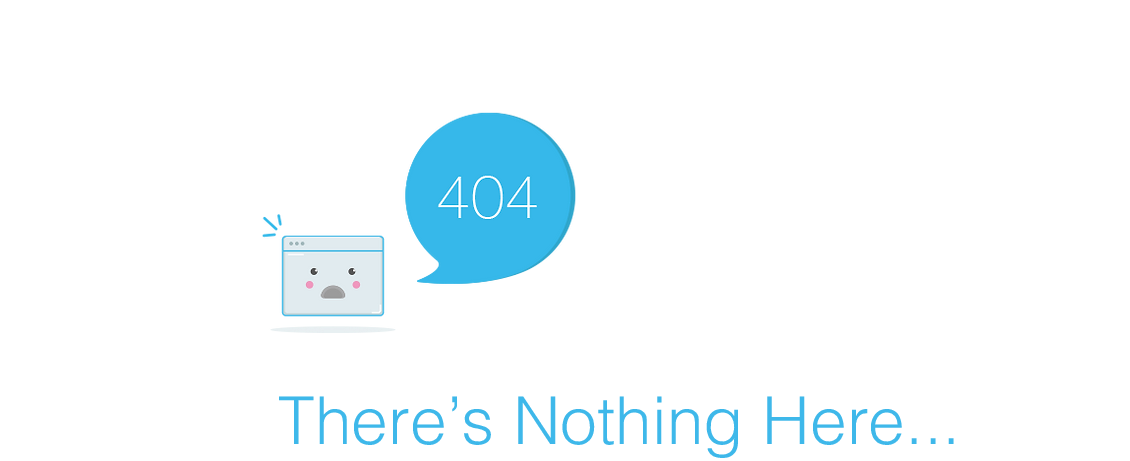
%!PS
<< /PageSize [1130 461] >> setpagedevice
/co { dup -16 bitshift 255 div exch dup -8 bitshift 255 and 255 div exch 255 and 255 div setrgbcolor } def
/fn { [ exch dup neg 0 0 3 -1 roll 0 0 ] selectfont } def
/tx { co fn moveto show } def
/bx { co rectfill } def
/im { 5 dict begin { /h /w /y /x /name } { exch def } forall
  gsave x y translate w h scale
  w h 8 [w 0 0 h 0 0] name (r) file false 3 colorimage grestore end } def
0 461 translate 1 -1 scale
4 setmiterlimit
0 0 1130 461 16#FFFFFF bx
(media/1.raw) 262 112 314 221 im
(There’s Nothing Here...) 278 444 /helvetica-Light 66 16#3EB8EA tx
showpage
